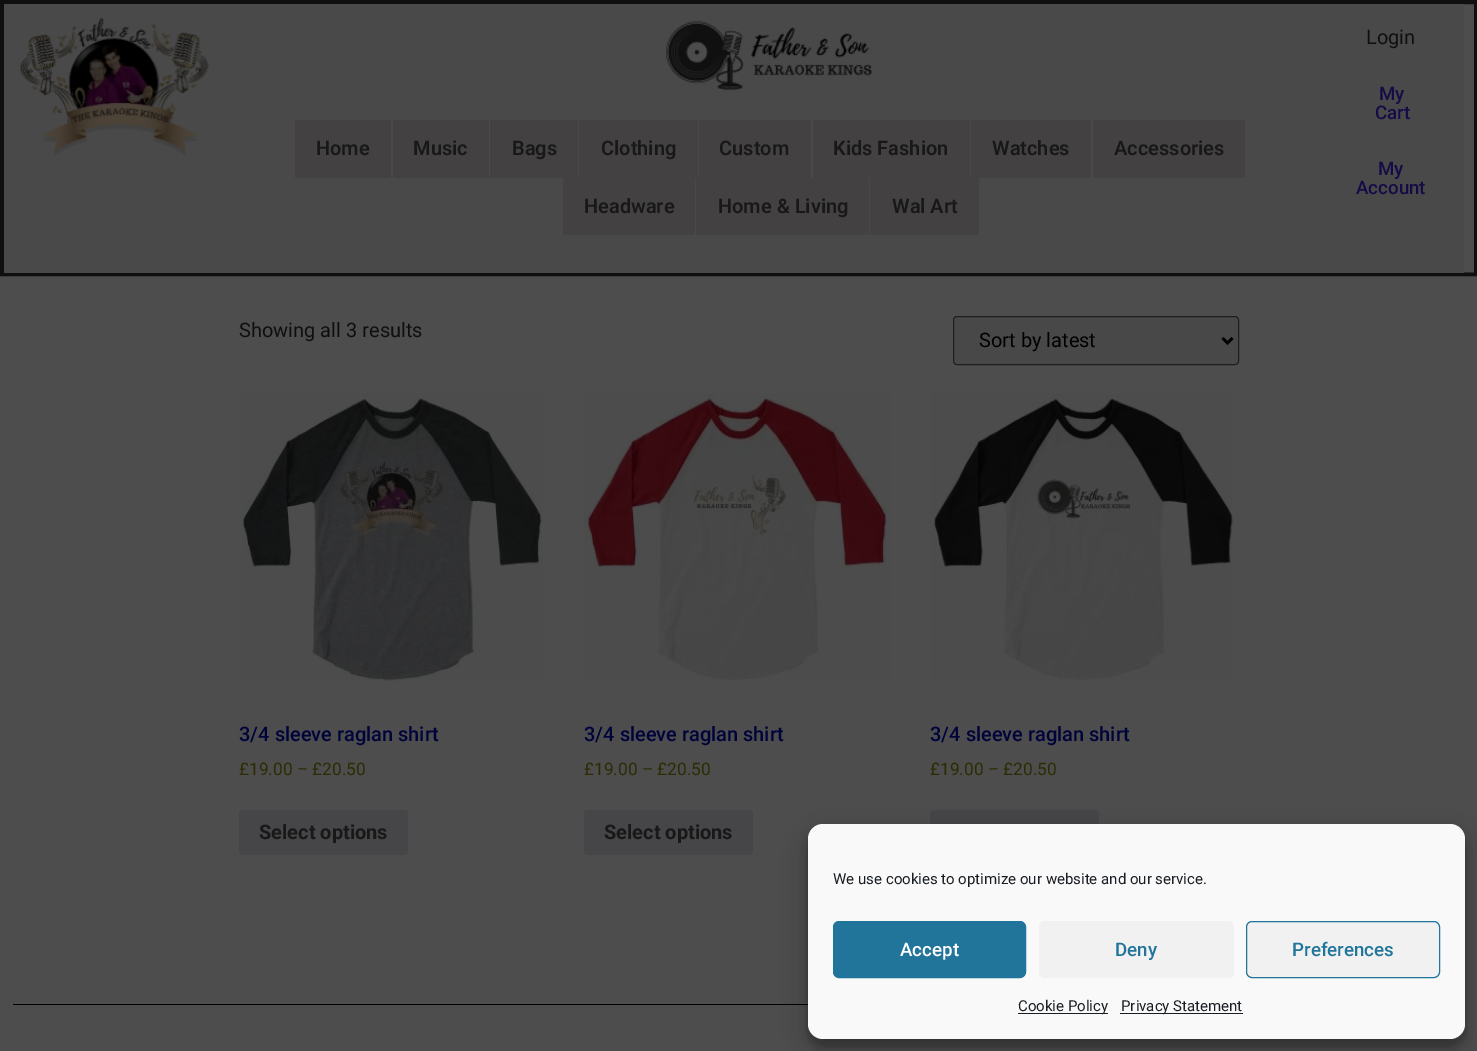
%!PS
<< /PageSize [1477 1051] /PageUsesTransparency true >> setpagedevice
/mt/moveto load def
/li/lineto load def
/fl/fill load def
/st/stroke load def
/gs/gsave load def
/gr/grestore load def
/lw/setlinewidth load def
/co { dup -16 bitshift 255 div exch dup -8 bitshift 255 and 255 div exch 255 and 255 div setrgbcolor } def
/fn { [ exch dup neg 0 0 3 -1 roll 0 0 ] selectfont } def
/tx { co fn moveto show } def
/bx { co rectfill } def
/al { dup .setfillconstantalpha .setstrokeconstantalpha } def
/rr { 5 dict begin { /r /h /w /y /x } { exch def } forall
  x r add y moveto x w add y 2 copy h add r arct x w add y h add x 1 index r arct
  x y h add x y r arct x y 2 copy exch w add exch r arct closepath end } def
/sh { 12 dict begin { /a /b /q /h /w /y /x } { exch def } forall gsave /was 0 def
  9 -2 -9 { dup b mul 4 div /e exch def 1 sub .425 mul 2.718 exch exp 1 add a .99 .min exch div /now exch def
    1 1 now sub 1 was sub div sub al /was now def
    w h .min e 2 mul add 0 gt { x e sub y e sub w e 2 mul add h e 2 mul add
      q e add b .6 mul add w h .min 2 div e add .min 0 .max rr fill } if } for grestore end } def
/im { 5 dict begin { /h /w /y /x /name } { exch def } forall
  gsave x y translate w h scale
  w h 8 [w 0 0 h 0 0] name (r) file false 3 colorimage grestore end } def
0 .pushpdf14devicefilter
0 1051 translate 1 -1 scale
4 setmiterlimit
0 0 1477 1051 16#4D4D4D bx
16#0F0F0F co
4 lw
2 2 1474 272 rectstroke
4 4 1460 269 16#494949 bx
(media/1.raw) 20 17 189 139 im
(media/2.raw) 666 21 206 70 im
295 120 96 58 16#434141 bx
393 120 96 58 16#434141 bx
490 120 88 58 16#434141 bx
579 120 119 58 16#434141 bx
699 120 112 58 16#434141 bx
813 120 157 58 16#434141 bx
971 120 120 58 16#434141 bx
1093 120 152 58 16#434141 bx
563 178 132 57 16#434141 bx
696 178 173 57 16#434141 bx
870 178 109 57 16#434141 bx
0.5 al
1464 272 10 1 16#484848 bx
1 al
953.5 316.5 285 48 3.5 rr gs fl gr
16#1F1F1F co
1 lw
st
16#000000 co
2.5 lw
1222.5 338 mt 1227.5 343 li 1232.5 338 li st
(media/3.raw) 241 393 302 288 im
16#464547 co
239 810 169 45 4 rr fl
(media/4.raw) 583 393 308 287 im
584 810 169 45 4 rr fl
(media/5.raw) 931 393 302 287 im
930 810 169 45 4 rr fl
13 1004 795 1 16#000000 bx
808 831 657 215 15 4 .23 sh
808 836 657 215 15 12.5 .19 sh
16#F9F9F9 co
808 824 657 215 15 rr fl
16#21759B co
833.5 921.5 192 56 5.5 rr gs fl gr
1 lw
st
16#F1F1F1 co
1039 921 195 57 6 rr fl
1246.5 921.5 193 56 5.5 rr gs fl gr
16#21759B co
st
1018 1013 90 1 16#191E23 bx
1120 1013 123 1 16#191E23 bx
(Home) 316 155 /Roboto-SemiBold 20 16#181818 tx
(Music) 413 155 /Roboto-SemiBold 20 16#181818 tx
(Bags) 512 155 /Roboto-SemiBold 20 16#181818 tx
(Clothing) 601 155 /Roboto-SemiBold 20 16#181818 tx
(Custom) 719 155 /Roboto-SemiBold 20 16#181818 tx
(Kids Fashion) 833 155 /Roboto-SemiBold 20 16#181818 tx
(Watches) 992 155 /Roboto-SemiBold 20 16#181818 tx
(Accessories) 1114 155 /Roboto-SemiBold 20 16#181818 tx
(Headware) 584 213 /Roboto-SemiBold 20 16#181818 tx
(Home & Living) 718 213 /Roboto-SemiBold 20 16#181818 tx
(Wal Art) 892 213 /Roboto-SemiBold 20 16#181818 tx
(Login) 1366 44 /Roboto-Regular 20 16#0F0F0F tx
(My) 1379 100 /Roboto-Medium 18.75 16#140B47 tx
(Cart) 1375 119 /Roboto-Medium 18.75 16#140B47 tx
(My) 1378 175 /Roboto-Medium 18.75 16#140B47 tx
(Account) 1356 194 /Roboto-Medium 18.75 16#140B47 tx
(Showing all 3 results) 239 337 /Roboto-Regular 20 16#0F0F0F tx
(Sort by latest) 979 347 /Roboto-Regular 20 16#000000 tx
(3/4 sleeve raglan shirt) 239 741 /Roboto-Medium 20 16#00023A tx
(£19.00 – £20.50) 239 775 /Roboto-Regular 17.25 16#2D2B03 tx
(Select options) 259 839 /Roboto-Bold 20 16#181818 tx
(3/4 sleeve raglan shirt) 584 741 /Roboto-Medium 20 16#00023A tx
(£19.00 – £20.50) 584 775 /Roboto-Regular 17.25 16#2D2B03 tx
(Select options) 604 839 /Roboto-Bold 20 16#181818 tx
(3/4 sleeve raglan shirt) 930 741 /Roboto-Medium 20 16#00023A tx
(£19.00 – £20.50) 930 775 /Roboto-Regular 17.25 16#2D2B03 tx
(We use cookies to optimize our website and our service.) 833 884 /Roboto-Regular 15 16#191E23 tx
(Accept) 900 956 /Roboto-Medium 18.75 16#FFFFFF tx
(Deny) 1115 956 /Roboto-Medium 18.75 16#21759B tx
(Preferences) 1292 956 /Roboto-Medium 18.75 16#21759B tx
(Cookie Policy) 1018 1011 /Roboto-Regular 15 16#191E23 tx
(Privacy Statement) 1121 1011 /Roboto-Regular 15 16#191E23 tx
.poppdf14devicefilter showpage
